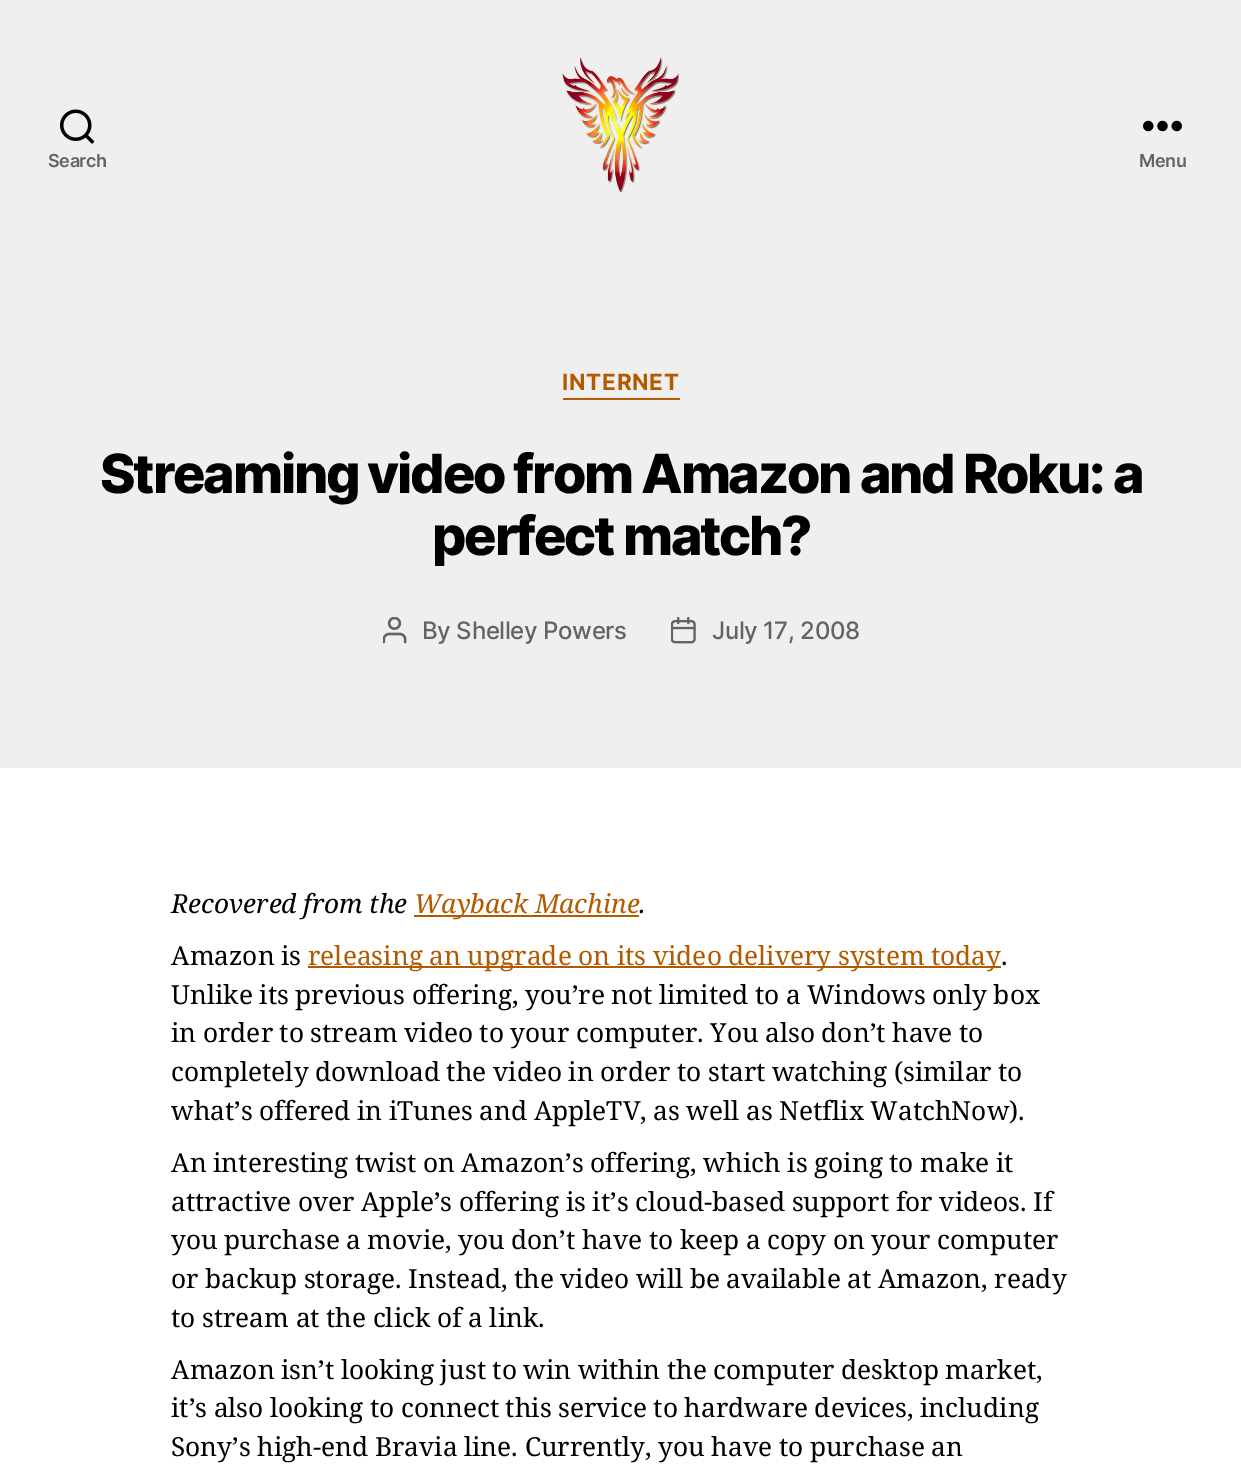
%!PS
<< /PageSize [1241 1464] >> setpagedevice
/mt/moveto load def
/co { dup -16 bitshift 255 div exch dup -8 bitshift 255 and 255 div exch 255 and 255 div setrgbcolor } def
/fn { [ exch dup neg 0 0 3 -1 roll 0 0 ] selectfont } def
/tx { co fn moveto show } def
/bx { co rectfill } def
/im { 5 dict begin { /h /w /y /x /name } { exch def } forall
  gsave x y translate w h scale
  w h 8 [w 0 0 h 0 0] name (r) file false 3 colorimage grestore end } def
0 1464 translate 1 -1 scale
4 setmiterlimit
0 0 1241 1464 16#FFFFFF bx
0 0 1241 768 16#EFEFEF bx
(media/1.raw) 60 109 35 35 im
(media/2.raw) 562 57 117 135 im
(media/3.raw) 1143 120 39 12 im
563 398 117 2 16#B35900 bx
(media/4.raw) 383 617 24 27 im
(media/5.raw) 671 617 25 27 im
414 915 225 2 16#B35900 bx
308 966 693 2 16#B35900 bx
/Inter-SemiBold 18 fn
16#636363 co
48 167 mt -.4 0 (Search) ashow
1139 167 mt -.4 0 (Menu) ashow
/Inter-Bold 22.5 fn
16#B35900 co
562 390 mt .75 0 (INTERNET) ashow
/Inter-ExtraBold 54 fn
16#000000 co
100 493 mt -2.25 0 (Streaming video from Amazon and Roku: a) ashow
432 555 mt -2.25 0 (perfect match?) ashow
/Inter-Medium 24 fn
16#636363 co
422 639 mt -.4 0 (By Shelley Powers) ashow
712 639 mt -.4 0 (July 17, 2008) ashow
/NotoSerif-Italic 26.25 fn
16#000000 co
171 913 mt -.3 0 32 (Recovered from the) widthshow
16#B35900 co
414 913 mt -.3 0 32 (Wayback Machine) widthshow
(.) 639 913 /NotoSerif-Italic 26.25 16#000000 tx
/NotoSerif-Regular 26.25 fn
171 965 mt -.3 0 32 (Amazon is) widthshow
16#B35900 co
308 965 mt -.3 0 32 (releasing an upgrade on its video delivery system today) widthshow
(.) 1001 965 /NotoSerif-Regular 26.25 16#000000 tx
171 1004 mt -.3 0 32 (Unlike its previous offering, you’re not limited to a Windows only box) widthshow
171 1042 mt -.3 0 32 (in order to stream video to your computer. You also don’t have to) widthshow
171 1081 mt -.3 0 32 (completely download the video in order to start watching \(similar to) widthshow
171 1120 mt -.3 0 32 (what’s offered in iTunes and AppleTV, as well as Netflix WatchNow\).) widthshow
171 1172 mt -.3 0 32 (An interesting twist on Amazon’s offering, which is going to make it) widthshow
171 1211 mt -.3 0 32 (attractive over Apple’s offering is it’s cloud-based support for videos. If) widthshow
171 1249 mt -.3 0 32 (you purchase a movie, you don’t have to keep a copy on your computer) widthshow
171 1288 mt -.3 0 32 (or backup storage. Instead, the video will be available at Amazon, ready) widthshow
171 1327 mt -.3 0 32 (to stream at the click of a link.) widthshow
171 1379 mt -.3 0 32 (Amazon isn’t looking just to win within the computer desktop market,) widthshow
171 1417 mt -.3 0 32 (it’s also looking to connect this service to hardware devices, including) widthshow
171 1456 mt -.3 0 32 (Sony’s high-end Bravia line. Currently, you have to purchase an) widthshow
showpage
